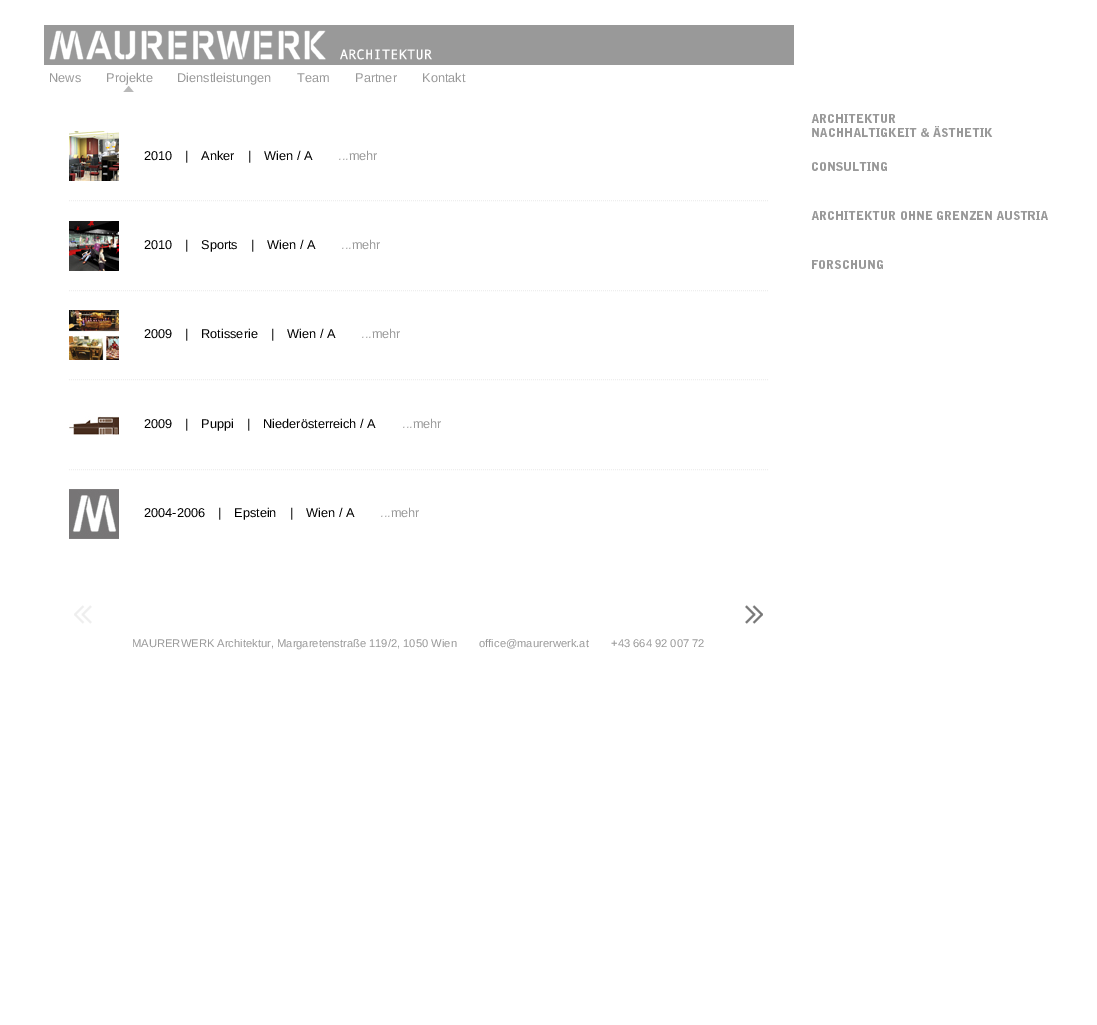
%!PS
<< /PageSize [1097 1025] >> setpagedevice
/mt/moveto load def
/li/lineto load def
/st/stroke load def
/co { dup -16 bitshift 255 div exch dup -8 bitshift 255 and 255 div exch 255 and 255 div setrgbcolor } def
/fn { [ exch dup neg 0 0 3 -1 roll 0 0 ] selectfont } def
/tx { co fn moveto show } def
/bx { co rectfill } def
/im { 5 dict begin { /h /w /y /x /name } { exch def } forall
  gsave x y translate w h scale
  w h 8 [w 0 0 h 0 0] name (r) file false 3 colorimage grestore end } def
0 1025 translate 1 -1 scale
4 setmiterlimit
0 0 1097 1025 16#FFFFFF bx
44 25 750 40 16#999999 bx
(media/1.raw) 49 30 383 30 im
(media/2.raw) 123 86 11 6 im
16#EEEEEE co
[1 1] 0 setdash
69 200.5 mt 769 200.5 li st
(media/3.raw) 69 131 50 50 im
69 290.5 mt 769 290.5 li st
(media/4.raw) 69 221 50 50 im
69 379.5 mt 769 379.5 li st
(media/5.raw) 69 310 50 50 im
69 469.5 mt 769 469.5 li st
(media/6.raw) 69 416 50 19 im
(media/7.raw) 69 489 50 50 im
(media/8.raw) 811 114 182 23 im
(media/9.raw) 812 162 75 9 im
(media/10.raw) 811 211 237 9 im
(media/11.raw) 812 260 71 9 im
(media/12.raw) 74 605 18 19 im
(media/13.raw) 745 605 18 19 im
(News) 49 82 /LiberationSans-Regular 12.75 16#999999 tx
(Projekte) 106 82 /LiberationSans-Regular 12.75 16#999999 tx
(Dienstleistungen) 177 82 /LiberationSans-Regular 12.75 16#999999 tx
(Team) 297 82 /LiberationSans-Regular 12.75 16#999999 tx
(Partner) 355 82 /LiberationSans-Regular 12.75 16#999999 tx
(Kontakt) 422 82 /LiberationSans-Regular 12.75 16#999999 tx
(2010) 144 160 /LiberationSans-Regular 12.75 16#000000 tx
(|) 185 160 /LiberationSans-Regular 12.75 16#000000 tx
(Anker) 201 160 /LiberationSans-Regular 12.75 16#000000 tx
(|) 248 160 /LiberationSans-Regular 12.75 16#000000 tx
(Wien / A) 264 160 /LiberationSans-Regular 12.75 16#000000 tx
(...mehr) 338 160 /LiberationSans-Regular 12.75 16#999999 tx
(2010) 144 249 /LiberationSans-Regular 12.75 16#000000 tx
(|) 185 249 /LiberationSans-Regular 12.75 16#000000 tx
(Sports) 201 249 /LiberationSans-Regular 12.75 16#000000 tx
(|) 251 249 /LiberationSans-Regular 12.75 16#000000 tx
(Wien / A) 267 249 /LiberationSans-Regular 12.75 16#000000 tx
(...mehr) 341 249 /LiberationSans-Regular 12.75 16#999999 tx
(2009) 144 338 /LiberationSans-Regular 12.75 16#000000 tx
(|) 185 338 /LiberationSans-Regular 12.75 16#000000 tx
(Rotisserie) 201 338 /LiberationSans-Regular 12.75 16#000000 tx
(|) 271 338 /LiberationSans-Regular 12.75 16#000000 tx
(Wien / A) 287 338 /LiberationSans-Regular 12.75 16#000000 tx
(...mehr) 361 338 /LiberationSans-Regular 12.75 16#999999 tx
(2009) 144 428 /LiberationSans-Regular 12.75 16#000000 tx
(|) 185 428 /LiberationSans-Regular 12.75 16#000000 tx
(Puppi) 201 428 /LiberationSans-Regular 12.75 16#000000 tx
(|) 247 428 /LiberationSans-Regular 12.75 16#000000 tx
(Niederösterreich / A) 263 428 /LiberationSans-Regular 12.75 16#000000 tx
(...mehr) 402 428 /LiberationSans-Regular 12.75 16#999999 tx
(2004-2006) 144 517 /LiberationSans-Regular 12.75 16#000000 tx
(|) 218 517 /LiberationSans-Regular 12.75 16#000000 tx
(Epstein) 234 517 /LiberationSans-Regular 12.75 16#000000 tx
(|) 290 517 /LiberationSans-Regular 12.75 16#000000 tx
(Wien / A) 306 517 /LiberationSans-Regular 12.75 16#000000 tx
(...mehr) 380 517 /LiberationSans-Regular 12.75 16#999999 tx
(MAURERWERK Architektur, Margaretenstraße 119/2, 1050 Wien) 132 647 /LiberationSans-Regular 11.2 16#999999 tx
(office@maurerwerk.at) 479 647 /LiberationSans-Regular 11.2 16#999999 tx
(+43 664 92 007 72) 611 647 /LiberationSans-Regular 11.2 16#999999 tx
showpage
